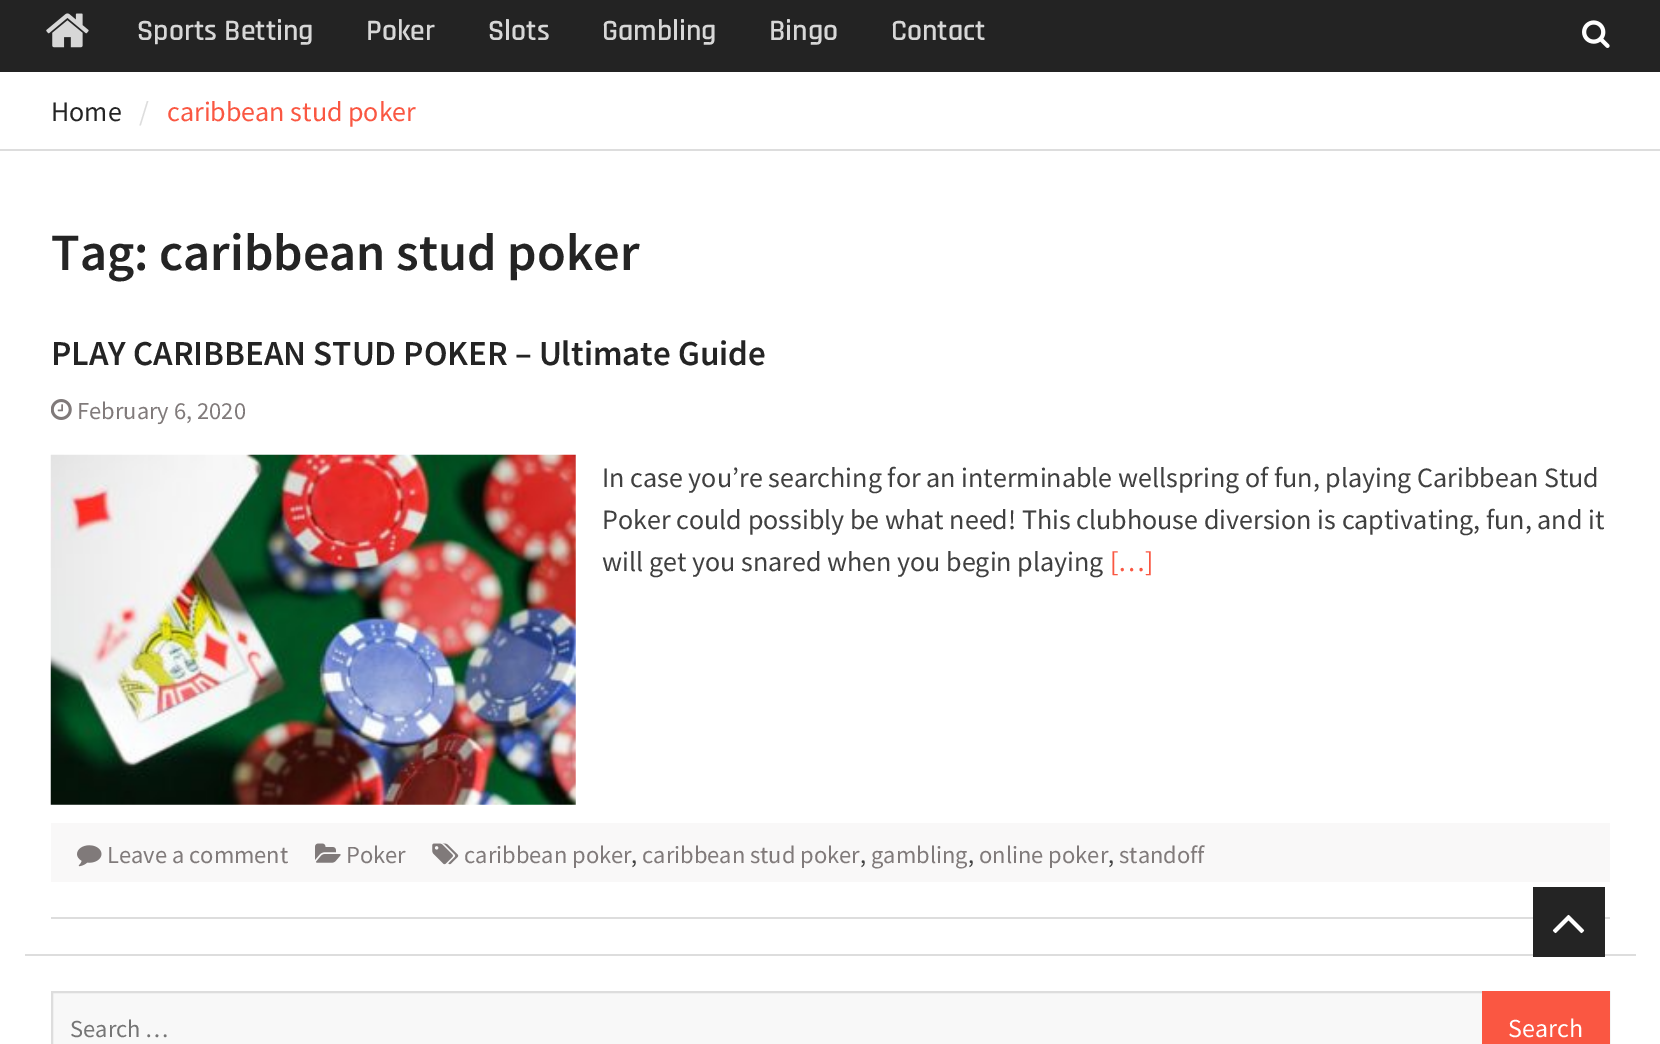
%!PS
<< /PageSize [1660 1044] >> setpagedevice
/lw/setlinewidth load def
/co { dup -16 bitshift 255 div exch dup -8 bitshift 255 and 255 div exch 255 and 255 div setrgbcolor } def
/fn { [ exch dup neg 0 0 3 -1 roll 0 0 ] selectfont } def
/tx { co fn moveto show } def
/bx { co rectfill } def
/im { 5 dict begin { /h /w /y /x /name } { exch def } forall
  gsave x y translate w h scale
  w h 8 [w 0 0 h 0 0] name (r) file false 3 colorimage grestore end } def
0 1044 translate 1 -1 scale
4 setmiterlimit
0 0 1660 1044 16#FFFFFF bx
0 0 1660 72 16#232323 bx
(media/1.raw) 46 13 43 35 im
(media/2.raw) 1582 20 28 28 im
0 149 1660 2 16#DDDDDD bx
25 954 1611 2 16#DDDDDD bx
51 917 1559 2 16#DDDDDD bx
(media/3.raw) 51 399 21 21 im
(media/4.raw) 50 454 526 351 im
51 823 1559 59 16#F9F8F8 bx
(media/5.raw) 77 845 25 22 im
(media/6.raw) 315 843 26 20 im
(media/7.raw) 432 843 27 22 im
53 993 1429 51 16#F8F8F8 bx
16#DDDDDD co
2 lw
52 992 1557 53 rectstroke
1482 991 128 53 16#FA5742 bx
1533 887 72 70 16#242424 bx
(media/8.raw) 1552 914 33 20 im
(Sports Betting) 137 40 /Rajdhani-SemiBold 29.75 16#D7D7D7 tx
(Poker) 366 40 /Rajdhani-SemiBold 29.75 16#D7D7D7 tx
(Slots) 488 40 /Rajdhani-SemiBold 29.75 16#D7D7D7 tx
(Gambling) 602 40 /Rajdhani-SemiBold 29.75 16#D7D7D7 tx
(Bingo) 769 40 /Rajdhani-SemiBold 29.75 16#D7D7D7 tx
(Contact) 891 40 /Rajdhani-SemiBold 29.75 16#D7D7D7 tx
(Home) 51 121 /SourceSansPro-Regular 28 16#242424 tx
(/) 139 121 /SourceSansPro-Regular 28 16#DDDDDD tx
(caribbean stud poker) 167 121 /SourceSansPro-Regular 28 16#FA5742 tx
(Tag: caribbean stud poker) 51 270 /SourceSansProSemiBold-SemiBold 52.5 16#242424 tx
(PLAY CARIBBEAN STUD POKER – Ultimate Guide) 51 365 /SourceSansProSemiBold-SemiBold 35 16#242424 tx
(February 6, 2020) 77 419 /SourceSansPro-Regular 24.5 16#807A7A tx
(In case you’re searching for an interminable wellspring of fun, playing Caribbean Stud) 602 487 /SourceSansPro-Regular 28 16#404040 tx
(Poker could possibly be what need! This clubhouse diversion is captivating, fun, and it) 602 529 /SourceSansPro-Regular 28 16#404040 tx
(will get you snared when you begin playing) 602 571 /SourceSansPro-Regular 28 16#404040 tx
([…]) 1110 571 /SourceSansPro-Regular 28 16#FA5742 tx
(Leave a comment) 107 863 /SourceSansPro-Regular 24.5 16#807A7A tx
(Poker) 346 863 /SourceSansPro-Regular 24.5 16#807A7A tx
(caribbean poker) 464 863 /SourceSansPro-Regular 24.5 16#807A7A tx
(,) 631 863 /SourceSansPro-Regular 24.5 16#404040 tx
(caribbean stud poker) 642 863 /SourceSansPro-Regular 24.5 16#807A7A tx
(,) 860 863 /SourceSansPro-Regular 24.5 16#404040 tx
(gambling) 871 863 /SourceSansPro-Regular 24.5 16#807A7A tx
(,) 968 863 /SourceSansPro-Regular 24.5 16#404040 tx
(online poker) 979 863 /SourceSansPro-Regular 24.5 16#807A7A tx
(,) 1108 863 /SourceSansPro-Regular 24.5 16#404040 tx
(standoff) 1119 863 /SourceSansPro-Regular 24.5 16#807A7A tx
(Search …) 70 1037 /SourceSansPro-Regular 24.5 16#757575 tx
(Search) 1508 1037 /SourceSansPro-Regular 26 16#FFFFFF tx
showpage
